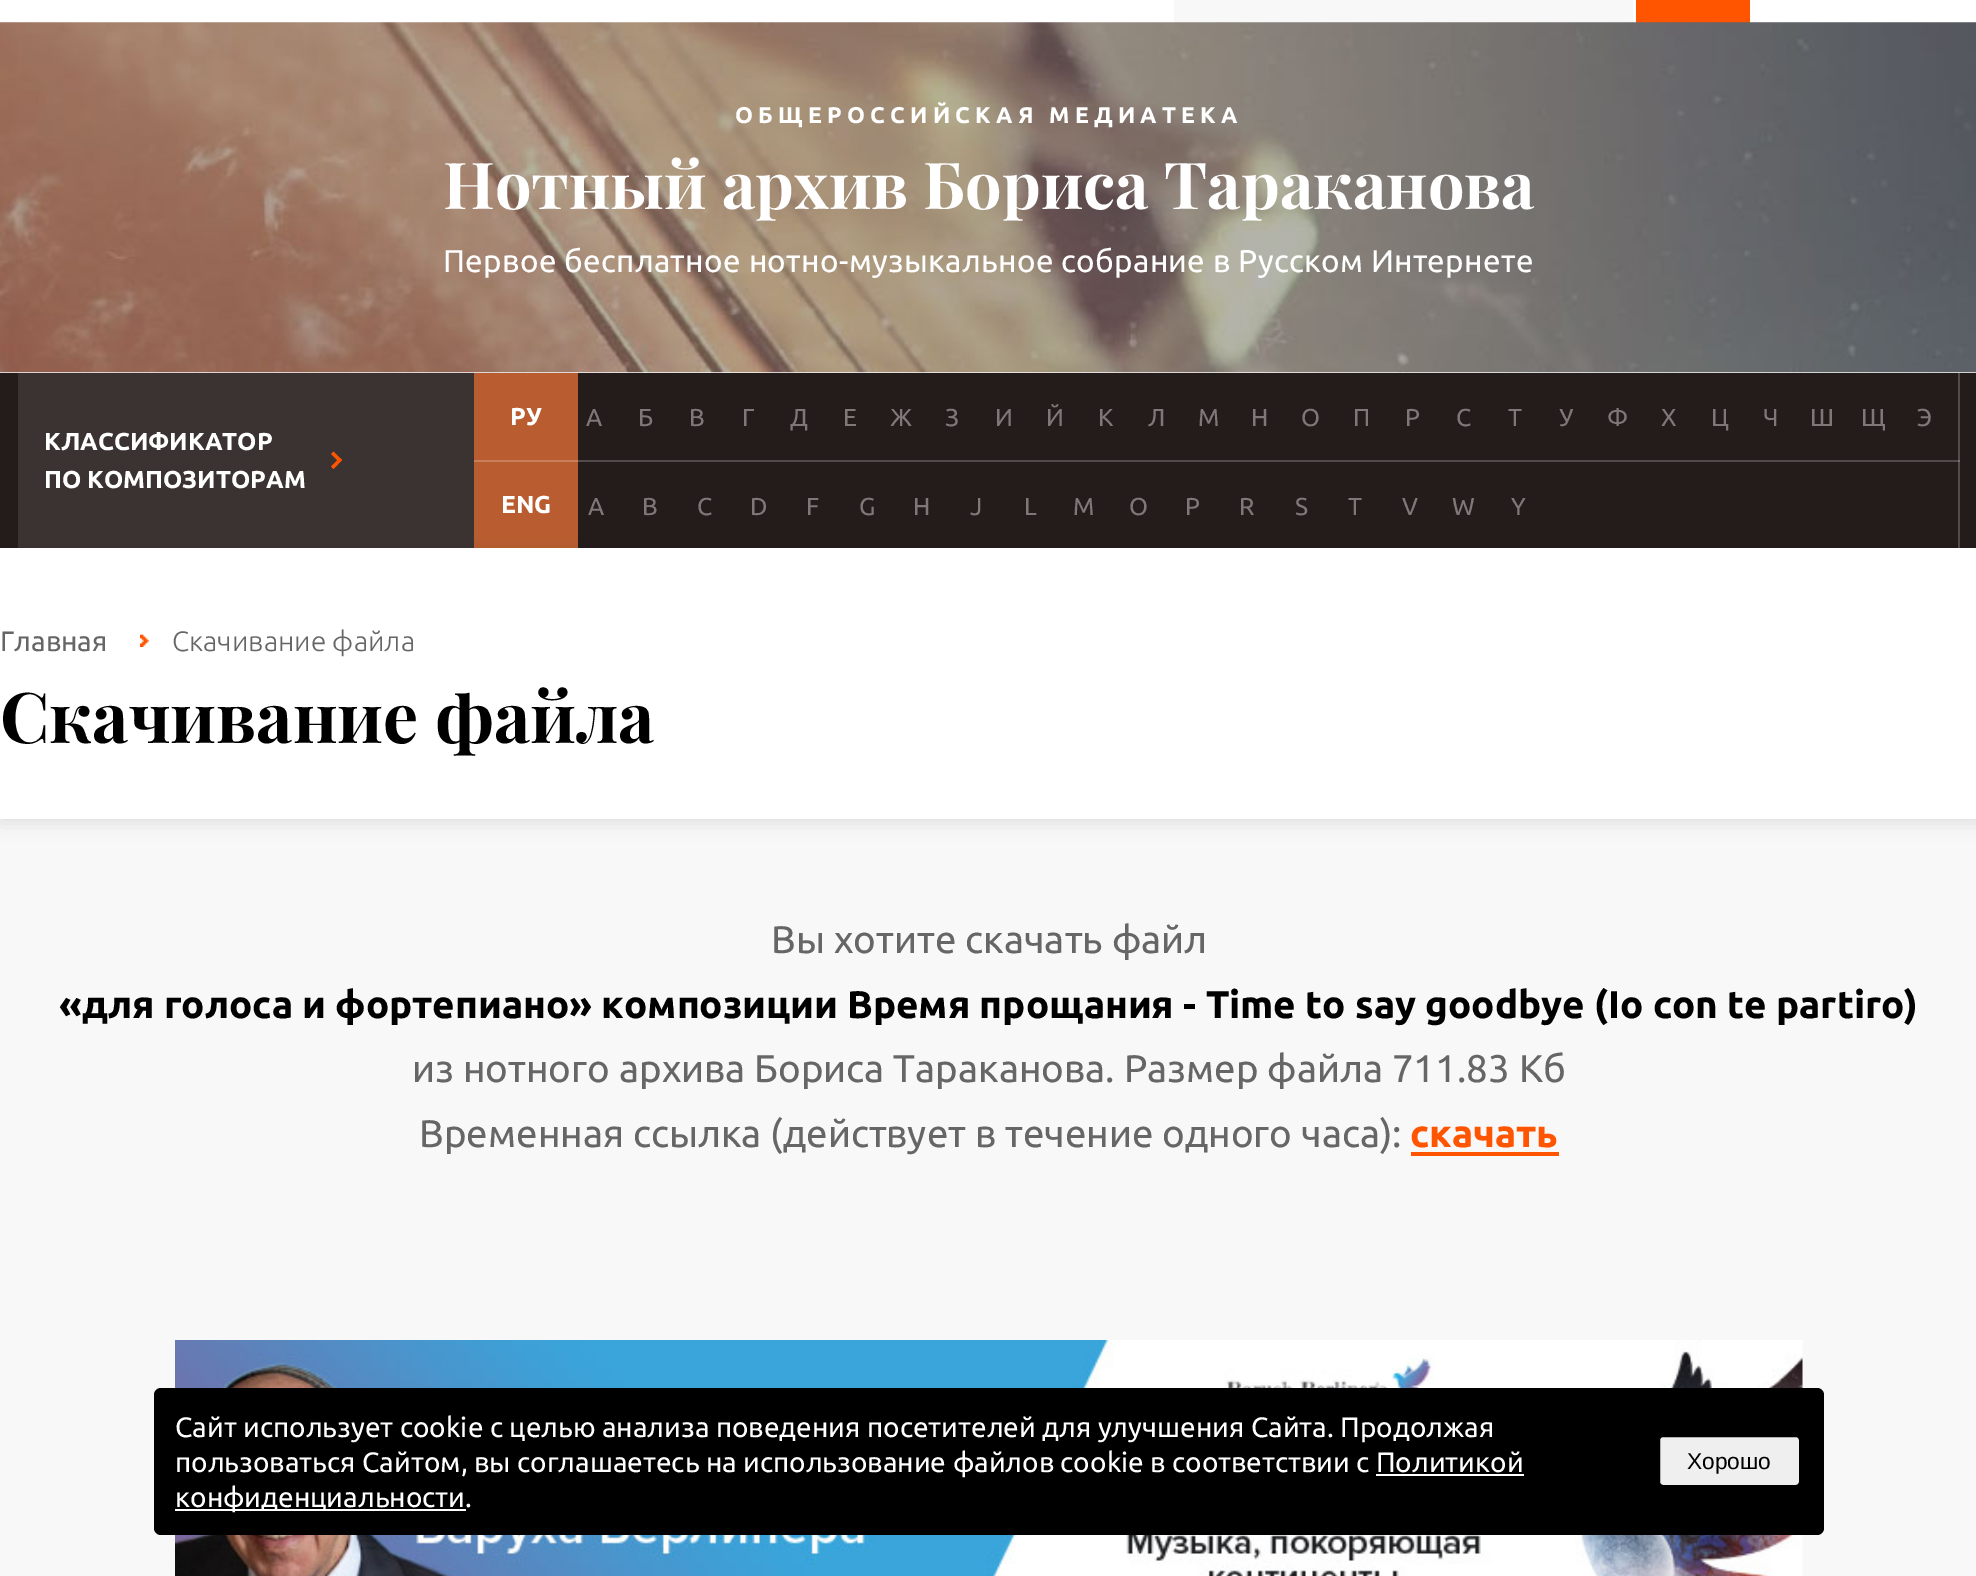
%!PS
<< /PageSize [1976 1576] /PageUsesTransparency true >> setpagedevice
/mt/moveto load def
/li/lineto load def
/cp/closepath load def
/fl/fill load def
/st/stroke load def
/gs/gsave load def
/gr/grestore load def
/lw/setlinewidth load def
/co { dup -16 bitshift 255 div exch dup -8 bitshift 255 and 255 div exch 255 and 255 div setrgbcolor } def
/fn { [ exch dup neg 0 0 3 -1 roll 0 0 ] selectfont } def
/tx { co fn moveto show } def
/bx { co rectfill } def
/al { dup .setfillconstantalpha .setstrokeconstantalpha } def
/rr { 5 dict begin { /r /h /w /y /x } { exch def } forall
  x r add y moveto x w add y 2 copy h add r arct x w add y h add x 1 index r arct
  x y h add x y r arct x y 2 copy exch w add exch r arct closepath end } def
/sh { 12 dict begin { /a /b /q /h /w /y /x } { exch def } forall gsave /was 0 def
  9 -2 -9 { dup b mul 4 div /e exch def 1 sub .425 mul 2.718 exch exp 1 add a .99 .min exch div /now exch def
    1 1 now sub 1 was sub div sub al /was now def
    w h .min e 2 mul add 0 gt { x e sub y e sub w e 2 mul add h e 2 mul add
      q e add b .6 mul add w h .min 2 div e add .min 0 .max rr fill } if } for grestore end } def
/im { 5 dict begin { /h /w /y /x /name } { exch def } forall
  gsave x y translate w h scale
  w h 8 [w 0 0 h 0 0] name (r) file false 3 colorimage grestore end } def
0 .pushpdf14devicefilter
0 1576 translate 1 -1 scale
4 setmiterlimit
0 0 1976 1576 16#F8F8F8 bx
0 0 1976 23 16#FFFFFF bx
1174 0 459 23 16#F8F8F8 bx
1636 0 114 23 16#FF5400 bx
(media/1.raw) 0 22 1976 351 im
0 373 1976 175 16#241B1B bx
578 460 1382 2 16#524B4B bx
18 373 456 175 16#3B3232 bx
16#FF5400 co
331 454 mt 333.5 451.5 li 342 460 li 339.5 462.5 li cp fl
331 466.5 mt 339.5 458 li 342 460 li 333.5 469 li cp fl
1958 373 2 175 16#524B4B bx
1958 460 2 2 16#767171 bx
474 373 104 87 16#B95D30 bx
474 460 104 2 16#C87F5B bx
474 462 104 86 16#B95D30 bx
16#000000 co
0 551 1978 272 0 9 .1 sh
0 548 1976 271 16#FFFFFF bx
(media/2.raw) 140 634 9 13 im
1411 1152 148 4 16#FF5400 bx
(media/3.raw) 175 1340 1628 236 im
16#000000 co
154 1388 1670 147 7 rr fl
1376 1474 148 2 16#FFFFFF bx
175 1509 291 2 16#FFFFFF bx
16#EFEFEF co
1658 1435 143 52 5 rr gs fl gr
16#000000 co
4 lw
st
/Ubuntu-Bold 22.75 fn
16#FFFFFF co
735 123 mt 5.25 0 (ОБЩЕРОССИЙСКАЯ МЕДИАТЕКА) ashow
(Нотный архив Бориса Тараканова) 443 209 /PlayfairDisplay-Bold 64.75 16#FFFFFF tx
/Ubuntu-Regular 31.5 fn
443 272 mt .32 0 (Первое бесплатное нотно-музыкальное собрание в Русском Интернете) ashow
(КЛАССИФИКАТОР) 44 450 /Ubuntu-Bold 24.5 16#FFFFFF tx
(ПО КОМПОЗИТОРАМ) 44 488 /Ubuntu-Bold 24.5 16#FFFFFF tx
(РУ) 510 425 /Ubuntu-Bold 24.5 16#FFFFFF tx
(А) 586 426 /Ubuntu-Regular 24.5 16#7E7878 tx
(Б) 638 426 /Ubuntu-Regular 24.5 16#7E7878 tx
(В) 689 426 /Ubuntu-Regular 24.5 16#7E7878 tx
(Г) 742 426 /Ubuntu-Regular 24.5 16#7E7878 tx
(Д) 790 426 /Ubuntu-Regular 24.5 16#7E7878 tx
(Е) 843 426 /Ubuntu-Regular 24.5 16#7E7878 tx
(Ж) 890 426 /Ubuntu-Regular 24.5 16#7E7878 tx
(З) 945 426 /Ubuntu-Regular 24.5 16#7E7878 tx
(И) 995 426 /Ubuntu-Regular 24.5 16#7E7878 tx
(Й) 1046 426 /Ubuntu-Regular 24.5 16#7E7878 tx
(К) 1098 426 /Ubuntu-Regular 24.5 16#7E7878 tx
(Л) 1148 426 /Ubuntu-Regular 24.5 16#7E7878 tx
(М) 1198 426 /Ubuntu-Regular 24.5 16#7E7878 tx
(Н) 1251 426 /Ubuntu-Regular 24.5 16#7E7878 tx
(О) 1301 426 /Ubuntu-Regular 24.5 16#7E7878 tx
(П) 1353 426 /Ubuntu-Regular 24.5 16#7E7878 tx
(Р) 1405 426 /Ubuntu-Regular 24.5 16#7E7878 tx
(С) 1456 426 /Ubuntu-Regular 24.5 16#7E7878 tx
(Т) 1508 426 /Ubuntu-Regular 24.5 16#7E7878 tx
(У) 1559 426 /Ubuntu-Regular 24.5 16#7E7878 tx
(Ф) 1607 426 /Ubuntu-Regular 24.5 16#7E7878 tx
(Х) 1661 426 /Ubuntu-Regular 24.5 16#7E7878 tx
(Ц) 1711 426 /Ubuntu-Regular 24.5 16#7E7878 tx
(Ч) 1763 426 /Ubuntu-Regular 24.5 16#7E7878 tx
(Ш) 1810 426 /Ubuntu-Regular 24.5 16#7E7878 tx
(Щ) 1861 426 /Ubuntu-Regular 24.5 16#7E7878 tx
(Э) 1917 426 /Ubuntu-Regular 24.5 16#7E7878 tx
(ENG) 501 513 /Ubuntu-Bold 24.5 16#FFFFFF tx
(A) 588 515 /Ubuntu-Regular 24.5 16#7E7878 tx
(B) 642 515 /Ubuntu-Regular 24.5 16#7E7878 tx
(C) 697 515 /Ubuntu-Regular 24.5 16#7E7878 tx
(D) 750 515 /Ubuntu-Regular 24.5 16#7E7878 tx
(F) 806 515 /Ubuntu-Regular 24.5 16#7E7878 tx
(G) 859 515 /Ubuntu-Regular 24.5 16#7E7878 tx
(H) 913 515 /Ubuntu-Regular 24.5 16#7E7878 tx
(J) 970 515 /Ubuntu-Regular 24.5 16#7E7878 tx
(L) 1024 515 /Ubuntu-Regular 24.5 16#7E7878 tx
(M) 1073 515 /Ubuntu-Regular 24.5 16#7E7878 tx
(O) 1129 515 /Ubuntu-Regular 24.5 16#7E7878 tx
(P) 1185 515 /Ubuntu-Regular 24.5 16#7E7878 tx
(R) 1239 515 /Ubuntu-Regular 24.5 16#7E7878 tx
(S) 1295 515 /Ubuntu-Regular 24.5 16#7E7878 tx
(T) 1348 515 /Ubuntu-Regular 24.5 16#7E7878 tx
(V) 1402 515 /Ubuntu-Regular 24.5 16#7E7878 tx
(W) 1452 515 /Ubuntu-Regular 24.5 16#7E7878 tx
(Y) 1511 515 /Ubuntu-Regular 24.5 16#7E7878 tx
(Главная) 0 651 /Ubuntu-Regular 28 16#666666 tx
(Скачивание файла) 172 651 /Ubuntu-Light 28 16#666666 tx
(Скачивание файла) 0 743 /PlayfairDisplay-Bold 70 16#000000 tx
(Вы хотите скачать файл) 771 953 /Ubuntu-Regular 38.5 16#666666 tx
(«для голоса и фортепиано» композиции Время прощания - Time to say goodbye \(Io con te partiro\)) 59 1018 /Ubuntu-Bold 38.5 16#000000 tx
(из нотного архива Бориса Тараканова. Размер файла 711.83 Кб) 412 1082 /Ubuntu-Regular 38.5 16#666666 tx
(Временная ссылка \(действует в течение одного часа\):) 419 1147 /Ubuntu-Regular 38.5 16#666666 tx
(скачать) 1410 1147 /Ubuntu-Bold 38.5 16#FF5400 tx
(Сайт использует cookie с целью анализа поведения посетителей для улучшения Сайта. Продолжая) 175 1437 /Ubuntu-Regular 28 16#FFFFFF tx
(пользоваться Сайтом, вы соглашаетесь на использование файлов cookie в соответствии с Политикой) 175 1472 /Ubuntu-Regular 28 16#FFFFFF tx
(конфиденциальности.) 175 1507 /Ubuntu-Regular 28 16#FFFFFF tx
(Хорошо) 1687 1469 /LiberationSans-Regular 22.75 16#000000 tx
.poppdf14devicefilter showpage
